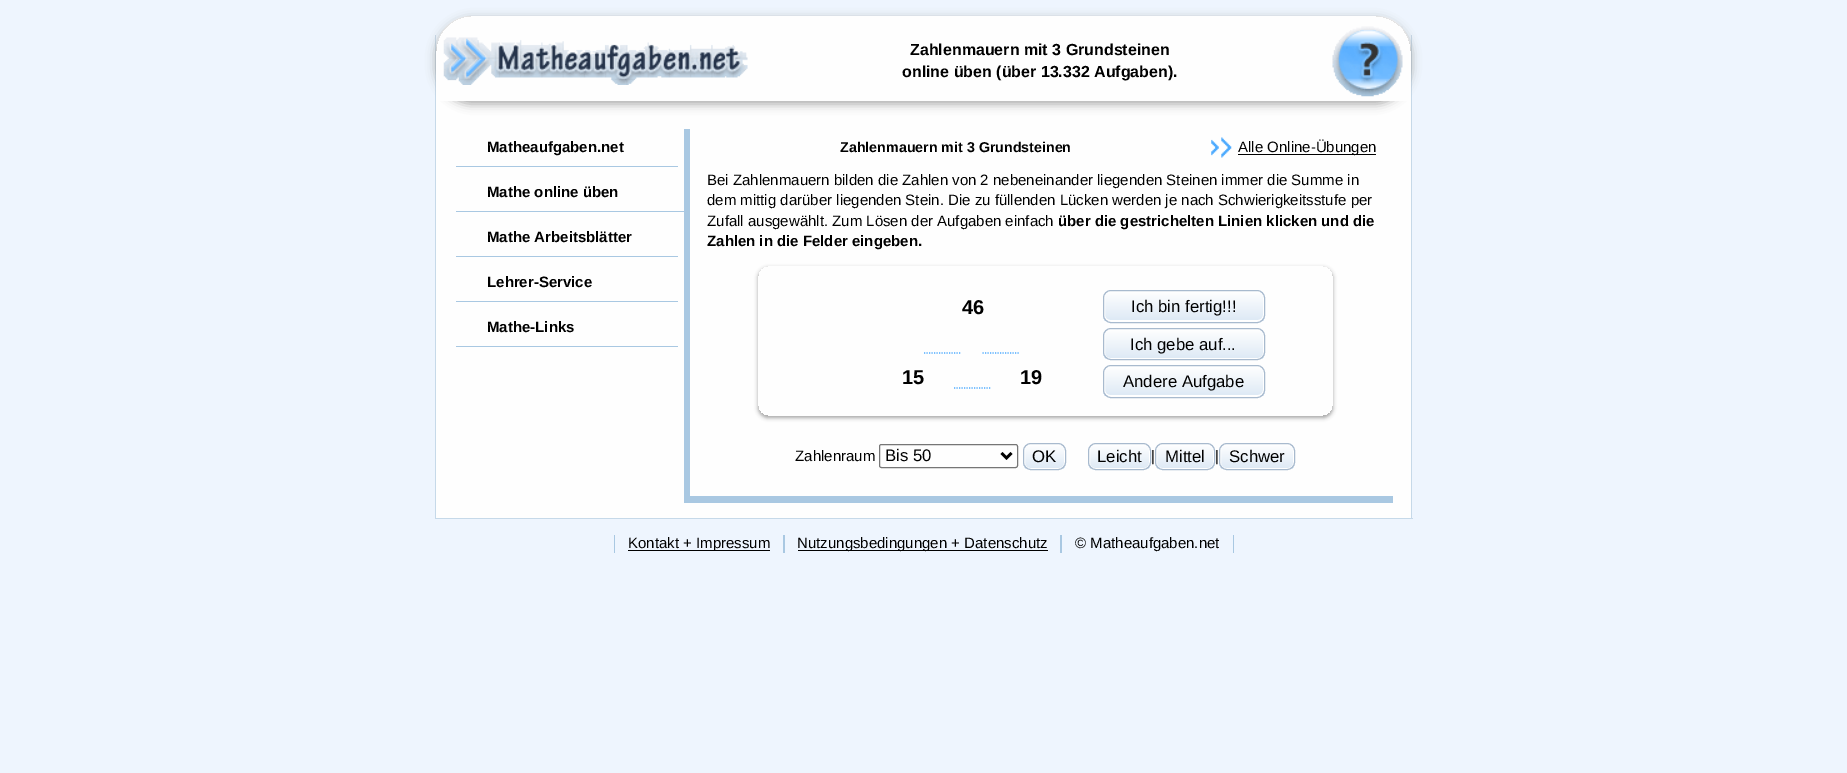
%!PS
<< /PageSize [1847 773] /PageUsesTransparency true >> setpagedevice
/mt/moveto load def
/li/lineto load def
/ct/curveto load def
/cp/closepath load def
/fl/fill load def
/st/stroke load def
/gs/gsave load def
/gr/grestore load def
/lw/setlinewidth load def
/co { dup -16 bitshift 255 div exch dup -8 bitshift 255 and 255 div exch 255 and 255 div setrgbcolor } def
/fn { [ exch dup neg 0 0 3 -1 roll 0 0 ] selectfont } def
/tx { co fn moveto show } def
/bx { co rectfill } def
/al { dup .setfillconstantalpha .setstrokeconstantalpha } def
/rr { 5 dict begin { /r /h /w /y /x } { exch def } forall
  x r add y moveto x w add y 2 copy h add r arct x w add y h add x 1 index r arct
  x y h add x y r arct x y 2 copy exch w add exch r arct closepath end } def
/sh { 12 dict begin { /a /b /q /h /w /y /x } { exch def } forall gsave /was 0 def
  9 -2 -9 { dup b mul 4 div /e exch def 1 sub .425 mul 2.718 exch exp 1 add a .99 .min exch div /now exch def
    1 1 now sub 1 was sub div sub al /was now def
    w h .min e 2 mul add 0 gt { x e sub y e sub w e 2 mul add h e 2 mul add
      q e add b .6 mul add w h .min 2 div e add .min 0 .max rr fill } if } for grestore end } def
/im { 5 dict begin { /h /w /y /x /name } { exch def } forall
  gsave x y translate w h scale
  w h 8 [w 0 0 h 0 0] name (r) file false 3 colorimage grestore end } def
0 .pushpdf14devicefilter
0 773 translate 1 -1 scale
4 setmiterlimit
0 0 1847 773 16#EEF5FE bx
16#FEFEFE co
471 16 mt 1376 16 li 1396 16 1411 32 1411 52 ct 1411 518 li 436 518 li 436 52 li 436 32 452 16 471 16 ct cp fl
1411 35 1 484 16#C6D9E9 bx
435 518 978 1 16#C6D9E9 bx
435 35 1 484 16#C6D9E9 bx
gs
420 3 mt 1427 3 li 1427 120 li 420 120 li cp 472 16 mt 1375 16 li 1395 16 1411 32 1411 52 ct 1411 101 li 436 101 li 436 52 li 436 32 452 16 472 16 ct cp eoclip newpath
16#A6A6A6 co
436 19 975 85 36 5 1 sh
gr
(media/1.raw) 443 37 305 48 im
(media/2.raw) 1332 26 71 71 im
456 166 222 1 16#A9C8E2 bx
456 211 228 1 16#A9C8E2 bx
456 256 222 1 16#A9C8E2 bx
456 301 222 1 16#A9C8E2 bx
456 346 222 1 16#A9C8E2 bx
684 496 709 7 16#A9C8E2 bx
684 129 6 374 16#A9C8E2 bx
(media/3.raw) 1211 137 21 21 im
1238 154 138 1 16#000000 bx
gs
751 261 mt 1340 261 li 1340 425 li 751 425 li cp 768 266 mt 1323 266 li 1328.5 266 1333 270.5 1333 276 ct 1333 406 li 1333 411.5 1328.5 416 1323 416 ct 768 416 li 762.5 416 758 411.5 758 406 ct 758 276 li 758 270.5 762.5 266 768 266 ct cp eoclip newpath
16#A6A6A6 co
758 268 575 150 10 2 1 sh
gr
16#4CAAFE co
1.2 lw
[1.25 1.25] 0 setdash
924 353 mt 961 353 li st
982.5 353 mt 1020 353 li st
954 388 mt 991 388 li st
gs
1103 290 162 33 8 rr clip newpath
gs 1103 291 mt 1265 291 li 1265 321 li 1103 321 li cp clip newpath
<< /ShadingType 2 /ColorSpace /DeviceRGB /Coords [1184 291 1184 321] /Extend [true true] /Function << /FunctionType 2 /Domain [0 1] /C0 [1 1 1] /C1 [.867 .914 .961] /N 1 >> >> shfill gr
gr
16#FFFFFF co
1 lw
[] 0 setdash
1104.5 291.5 159 29 5.5 rr st
16#A8BACE co
1103.5 290.5 161 32 7.5 rr st
gs
1103 328 162 32 8 rr clip newpath
gs 1103 329 mt 1265 329 li 1265 359 li 1103 359 li cp clip newpath
<< /ShadingType 2 /ColorSpace /DeviceRGB /Coords [1184 329 1184 359] /Extend [true true] /Function << /FunctionType 2 /Domain [0 1] /C0 [1 1 1] /C1 [.867 .914 .961] /N 1 >> >> shfill gr
gr
16#FFFFFF co
1104.5 329.5 159 29 5.5 rr st
16#A8BACE co
1103.5 328.5 161 31 7.5 rr st
gs
1103 365 162 33 8 rr clip newpath
gs 1103 366 mt 1265 366 li 1265 396 li 1103 396 li cp clip newpath
<< /ShadingType 2 /ColorSpace /DeviceRGB /Coords [1184 366 1184 396] /Extend [true true] /Function << /FunctionType 2 /Domain [0 1] /C0 [1 1 1] /C1 [.867 .914 .961] /N 1 >> >> shfill gr
gr
16#FFFFFF co
1104.5 366.5 159 29 5.5 rr st
16#A8BACE co
1103.5 365.5 161 32 7.5 rr st
16#767676 co
879.5 444.5 138 23 2 rr st
16#000000 co
2.5 lw
1001.5 453 mt 1006.5 458 li 1011.5 453 li st
gs
1023 443 43 27 8 rr clip newpath
gs 1023 444 mt 1066 444 li 1066 469 li 1023 469 li cp clip newpath
<< /ShadingType 2 /ColorSpace /DeviceRGB /Coords [1044 444 1044 469] /Extend [true true] /Function << /FunctionType 2 /Domain [0 1] /C0 [1 1 1] /C1 [.867 .914 .961] /N 1 >> >> shfill gr
gr
16#FFFFFF co
1 lw
1024.5 444.5 40 24 5.5 rr st
16#A8BACE co
1023.5 443.5 42 26 7.5 rr st
gs
1088 443 63 27 8 rr clip newpath
gs 1088 444 mt 1151 444 li 1151 469 li 1088 469 li cp clip newpath
<< /ShadingType 2 /ColorSpace /DeviceRGB /Coords [1119 444 1119 469] /Extend [true true] /Function << /FunctionType 2 /Domain [0 1] /C0 [1 1 1] /C1 [.867 .914 .961] /N 1 >> >> shfill gr
gr
16#FFFFFF co
1089.5 444.5 60 24 5.5 rr st
16#A8BACE co
1088.5 443.5 62 26 7.5 rr st
gs
1155 443 60 27 8 rr clip newpath
gs 1155 444 mt 1215 444 li 1215 469 li 1155 469 li cp clip newpath
<< /ShadingType 2 /ColorSpace /DeviceRGB /Coords [1185 444 1185 469] /Extend [true true] /Function << /FunctionType 2 /Domain [0 1] /C0 [1 1 1] /C1 [.867 .914 .961] /N 1 >> >> shfill gr
gr
16#FFFFFF co
1156.5 444.5 57 24 5.5 rr st
16#A8BACE co
1155.5 443.5 59 26 7.5 rr st
gs
1219 443 76 27 8 rr clip newpath
gs 1219 444 mt 1295 444 li 1295 469 li 1219 469 li cp clip newpath
<< /ShadingType 2 /ColorSpace /DeviceRGB /Coords [1257 444 1257 469] /Extend [true true] /Function << /FunctionType 2 /Domain [0 1] /C0 [1 1 1] /C1 [.867 .914 .961] /N 1 >> >> shfill gr
gr
16#FFFFFF co
1220.5 444.5 73 24 5.5 rr st
16#A8BACE co
1219.5 443.5 75 26 7.5 rr st
783 535 2 18 16#A9C8E2 bx
614 535 1 18 16#A9C8E2 bx
628 550 142 1 16#000000 bx
1060 535 2 18 16#A9C8E2 bx
798 550 250 1 16#000000 bx
1233 535 1 18 16#A9C8E2 bx
(Zahlenmauern mit 3 Grundsteinen) 910 55 /LiberationSans-Bold 16 16#000000 tx
(online üben \(über 13.332 Aufgaben\).) 902 77 /LiberationSans-Bold 16 16#000000 tx
(Matheaufgaben.net) 487 152 /LiberationSans-Bold 15 16#000000 tx
(Mathe online üben) 487 197 /LiberationSans-Bold 15 16#000000 tx
(Mathe Arbeitsblätter) 487 242 /LiberationSans-Bold 15 16#000000 tx
(Lehrer-Service) 487 287 /LiberationSans-Bold 15 16#000000 tx
(Mathe-Links) 487 332 /LiberationSans-Bold 15 16#000000 tx
(Zahlenmauern mit 3 Grundsteinen) 840 152 /LiberationSans-Bold 14.25 16#000000 tx
(Alle Online-Übungen) 1238 152 /LiberationSans-Regular 15 16#000000 tx
(Bei Zahlenmauern bilden die Zahlen von 2 nebeneinander liegenden Steinen immer die Summe in) 707 185 /LiberationSans-Regular 15 16#000000 tx
(dem mittig darüber liegenden Stein. Die zu füllenden Lücken werden je nach Schwierigkeitsstufe per) 707 205 /LiberationSans-Regular 15 16#000000 tx
(Zufall ausgewählt. Zum Lösen der Aufgaben einfach) 707 226 /LiberationSans-Regular 15 16#000000 tx
(über die gestrichelten Linien klicken und die) 1058 226 /LiberationSans-Bold 15 16#000000 tx
(Zahlen in die Felder eingeben.) 707 246 /LiberationSans-Bold 15 16#000000 tx
(46) 962 314 /LiberationSans-Bold 20 16#000000 tx
(15) 902 384 /LiberationSans-Bold 20 16#000000 tx
(19) 1020 384 /LiberationSans-Bold 20 16#000000 tx
(Ich bin fertig!!!) 1131 312 /LiberationSans-Regular 16.75 16#000000 tx
(Ich gebe auf...) 1130 350 /LiberationSans-Regular 16.75 16#000000 tx
(Andere Aufgabe) 1123 387 /LiberationSans-Regular 16.75 16#000000 tx
(Zahlenraum) 795 461 /LiberationSans-Regular 15 16#000000 tx
(Bis 50) 885 461 /LiberationSans-Regular 16.75 16#000000 tx
(OK) 1032 462 /LiberationSans-Regular 16.75 16#000000 tx
(Leicht) 1097 462 /LiberationSans-Regular 16.75 16#000000 tx
(|) 1151 461 /LiberationSans-Regular 15 16#000000 tx
(Mittel) 1165 462 /LiberationSans-Regular 16.75 16#000000 tx
(|) 1215 461 /LiberationSans-Regular 15 16#000000 tx
(Schwer) 1229 462 /LiberationSans-Regular 16.75 16#000000 tx
(Kontakt + Impressum) 628 548 /LiberationSans-Regular 15 16#000000 tx
(Nutzungsbedingungen + Datenschutz) 797 548 /LiberationSans-Regular 15 16#000000 tx
(© Matheaufgaben.net) 1075 548 /LiberationSans-Regular 15 16#000000 tx
.poppdf14devicefilter showpage
